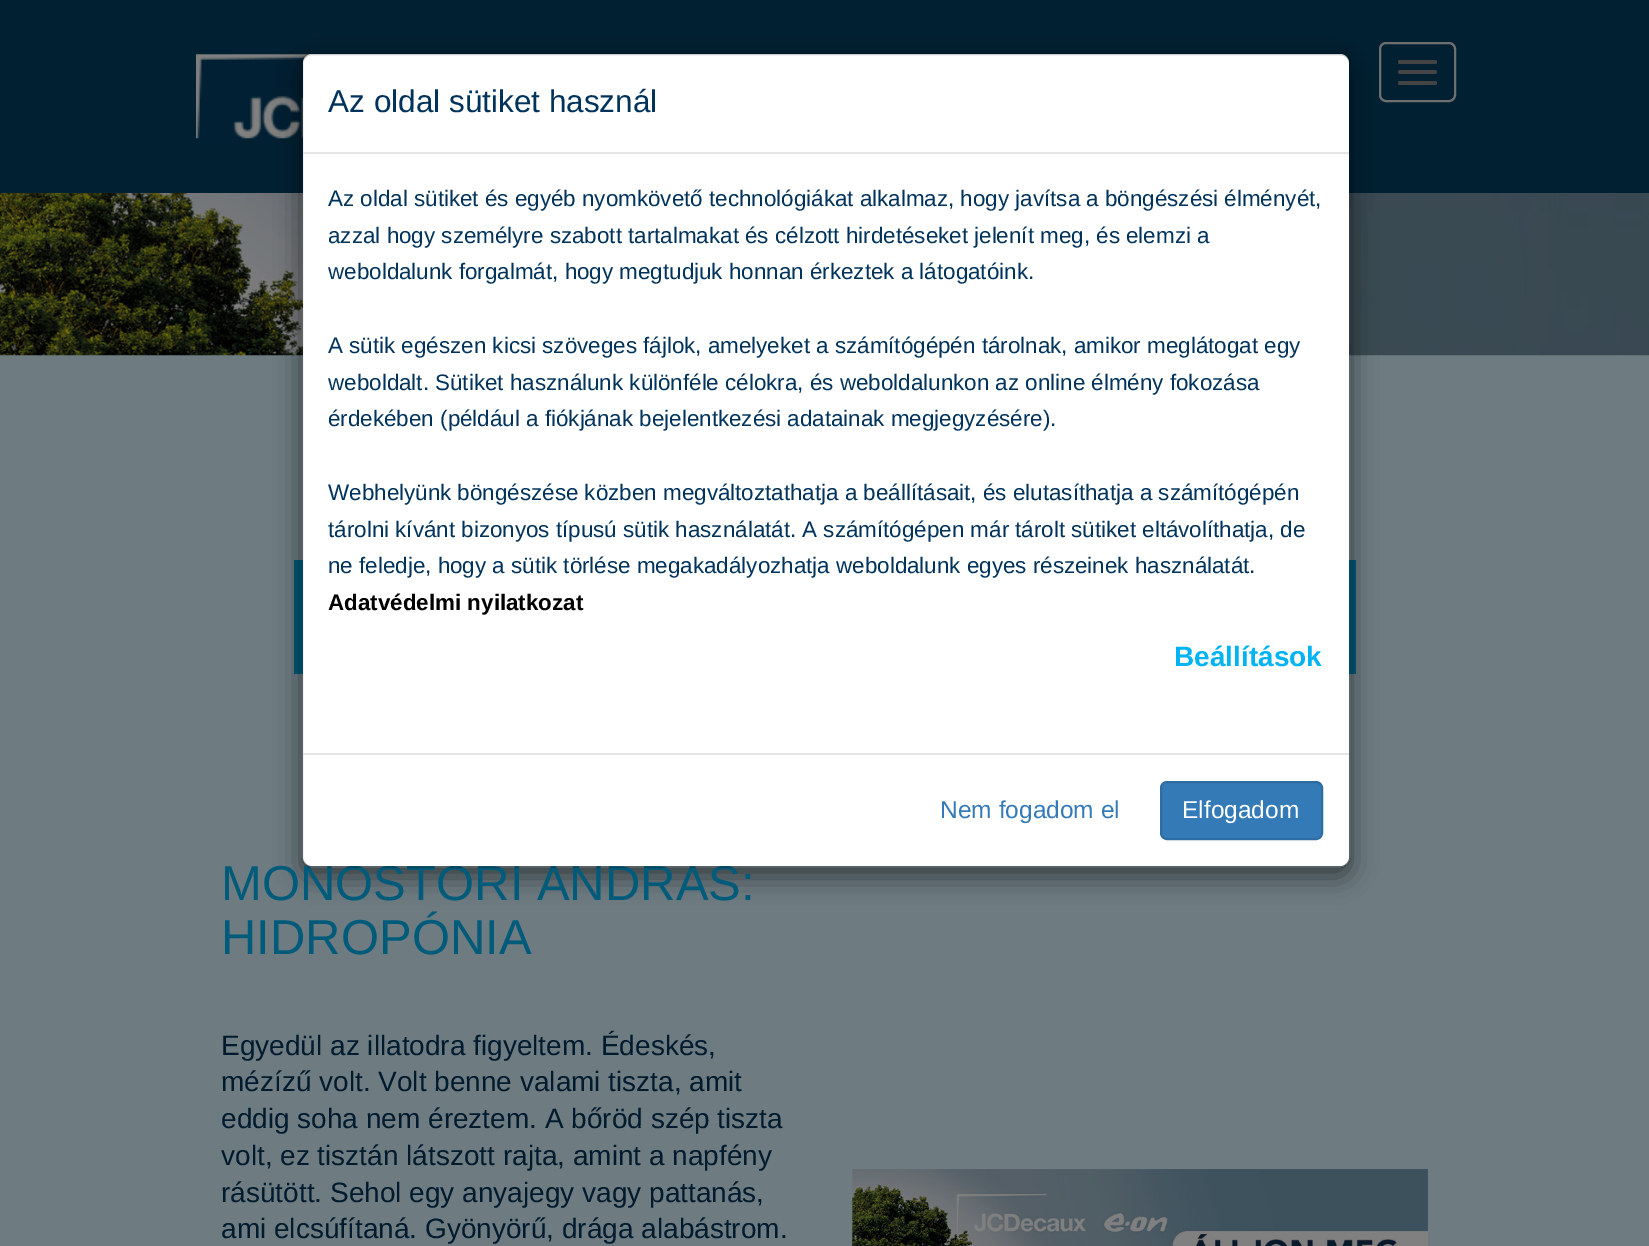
%!PS
<< /PageSize [1649 1246] /PageUsesTransparency true >> setpagedevice
/mt/moveto load def
/li/lineto load def
/ct/curveto load def
/cp/closepath load def
/fl/fill load def
/st/stroke load def
/gs/gsave load def
/gr/grestore load def
/lw/setlinewidth load def
/co { dup -16 bitshift 255 div exch dup -8 bitshift 255 and 255 div exch 255 and 255 div setrgbcolor } def
/fn { [ exch dup neg 0 0 3 -1 roll 0 0 ] selectfont } def
/tx { co fn moveto show } def
/bx { co rectfill } def
/al { dup .setfillconstantalpha .setstrokeconstantalpha } def
/rr { 5 dict begin { /r /h /w /y /x } { exch def } forall
  x r add y moveto x w add y 2 copy h add r arct x w add y h add x 1 index r arct
  x y h add x y r arct x y 2 copy exch w add exch r arct closepath end } def
/sh { 12 dict begin { /a /b /q /h /w /y /x } { exch def } forall gsave /was 0 def
  9 -2 -9 { dup b mul 4 div /e exch def 1 sub .425 mul 2.718 exch exp 1 add a .99 .min exch div /now exch def
    1 1 now sub 1 was sub div sub al /was now def
    w h .min e 2 mul add 0 gt { x e sub y e sub w e 2 mul add h e 2 mul add
      q e add b .6 mul add w h .min 2 div e add .min 0 .max rr fill } if } for grestore end } def
/im { 5 dict begin { /h /w /y /x /name } { exch def } forall
  gsave x y translate w h scale
  w h 8 [w 0 0 h 0 0] name (r) file false 3 colorimage grestore end } def
0 .pushpdf14devicefilter
0 1246 translate 1 -1 scale
4 setmiterlimit
0 0 1649 1246 16#6E7B80 bx
0 0 1649 193 16#012133 bx
(media/1.raw) 196 54 116 85 im
16#6F6F6F co
2 lw
1380 43 75 58 6 rr st
16#444444 co
1398 60 39 4 2 rr fl
1398 70 39 4 2 rr fl
1398 81 39 4 2 rr fl
(media/2.raw) 0 193 1649 163 im
294 560 9 114 16#005A7A bx
1349 560 7 114 16#005A7A bx
gs
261 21 mt 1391 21 li 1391 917 li 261 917 li cp 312 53 mt 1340 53 li 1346 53 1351 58 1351 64 ct 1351 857 li 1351 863 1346 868 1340 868 ct 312 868 li 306 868 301 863 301 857 ct 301 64 li 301 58 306 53 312 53 ct cp eoclip newpath
16#000000 co
301 61 1050 816 11 13 .5 sh
gr
(media/3.raw) 852 1169 576 77 im
(MONOSTORI ANDRÁS:) 221 900 /LiberationSans-Regular 49 16#005A7A tx
16#FFFFFF co
303 54 1046 812 9 rr fl
0.2 al
16#000000 co
302 54 1048 813 10 rr st
1 al
(Adatvédelmi nyilatkozat) 328 610 /LiberationSans-Bold 22.4 16#000000 tx
(ne feledje, hogy a sütik törlése megakadályozhatja weboldalunk egyes részeinek használatát.) 328 573 /LiberationSans-Regular 22.4 16#00335B tx
(tárolni kívánt bizonyos típusú sütik használatát. A számítógépen már tárolt sütiket eltávolíthatja, de) 328 537 /LiberationSans-Regular 22.4 16#00335B tx
(Webhelyünk böngészése közben megváltoztathatja a beállításait, és elutasíthatja a számítógépén) 328 500 /LiberationSans-Regular 22.4 16#00335B tx
(érdekében \(például a fiókjának bejelentkezési adatainak megjegyzésére\).) 328 426 /LiberationSans-Regular 22.4 16#00335B tx
(weboldalt. Sütiket használunk különféle célokra, és weboldalunkon az online élmény fokozása) 328 390 /LiberationSans-Regular 22.4 16#00335B tx
(A sütik egészen kicsi szöveges fájlok, amelyeket a számítógépén tárolnak, amikor meglátogat egy) 328 353 /LiberationSans-Regular 22.4 16#00335B tx
(weboldalunk forgalmát, hogy megtudjuk honnan érkeztek a látogatóink.) 328 279 /LiberationSans-Regular 22.4 16#00335B tx
(azzal hogy személyre szabott tartalmakat és célzott hirdetéseket jelenít meg, és elemzi a) 328 243 /LiberationSans-Regular 22.4 16#00335B tx
(Az oldal sütiket és egyéb nyomkövető technológiákat alkalmaz, hogy javítsa a böngészési élményét,) 328 206 /LiberationSans-Regular 22.4 16#00335B tx
(Beállítások) 1174 666 /LiberationSans-Bold 28 16#00B4F4 tx
16#337AB7 co
1161 782 161 57 6 rr gs fl gr
16#2E6DA4 co
st
(Elfogadom) 1182 818 /LiberationSans-Regular 24.5 16#FFFFFF tx
(Nem fogadom el) 940 818 /LiberationSans-Regular 24.5 16#337AB7 tx
(Az oldal sütiket használ) 328 112 /LiberationSans-Regular 31.5 16#00335B tx
303 753 1046 2 16#E5E5E5 bx
303 152 1046 2 16#E5E5E5 bx
(HIDROPÓNIA) 221 954 /LiberationSans-Regular 49 16#005A7A tx
(Egyedül az illatodra figyeltem. Édeskés,) 221 1055 /LiberationSans-Regular 28 16#001A2E tx
(mézízű volt. Volt benne valami tiszta, amit) 221 1091 /LiberationSans-Regular 28 16#001A2E tx
(eddig soha nem éreztem. A bőröd szép tiszta) 221 1128 /LiberationSans-Regular 28 16#001A2E tx
(volt, ez tisztán látszott rajta, amint a napfény) 221 1165 /LiberationSans-Regular 28 16#001A2E tx
(rásütött. Sehol egy anyajegy vagy pattanás,) 221 1202 /LiberationSans-Regular 28 16#001A2E tx
(ami elcsúfítaná. Gyönyörű, drága alabástrom.) 221 1238 /LiberationSans-Regular 28 16#001A2E tx
.poppdf14devicefilter showpage
